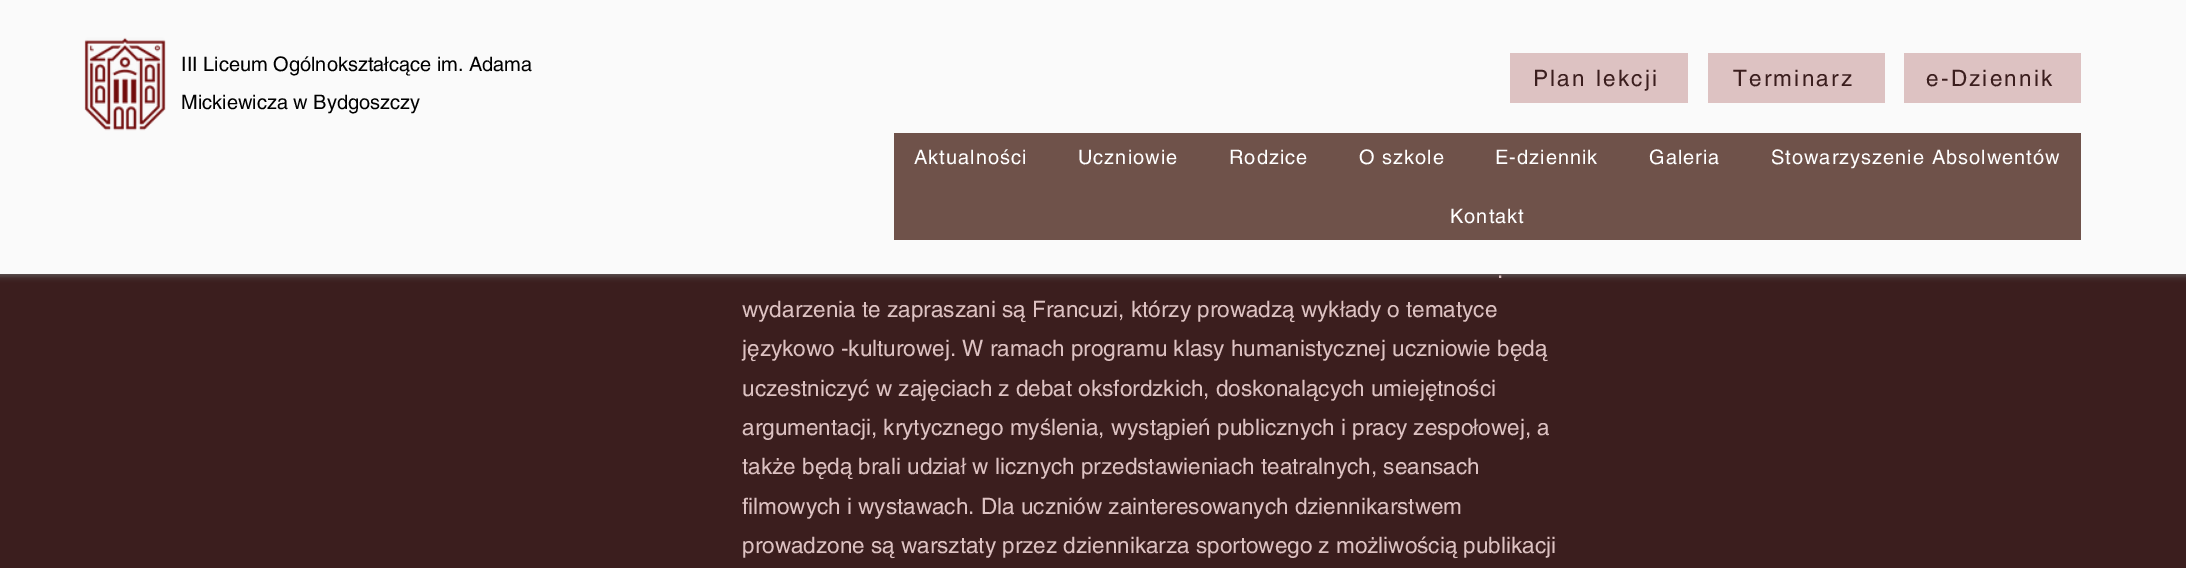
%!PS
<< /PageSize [2186 568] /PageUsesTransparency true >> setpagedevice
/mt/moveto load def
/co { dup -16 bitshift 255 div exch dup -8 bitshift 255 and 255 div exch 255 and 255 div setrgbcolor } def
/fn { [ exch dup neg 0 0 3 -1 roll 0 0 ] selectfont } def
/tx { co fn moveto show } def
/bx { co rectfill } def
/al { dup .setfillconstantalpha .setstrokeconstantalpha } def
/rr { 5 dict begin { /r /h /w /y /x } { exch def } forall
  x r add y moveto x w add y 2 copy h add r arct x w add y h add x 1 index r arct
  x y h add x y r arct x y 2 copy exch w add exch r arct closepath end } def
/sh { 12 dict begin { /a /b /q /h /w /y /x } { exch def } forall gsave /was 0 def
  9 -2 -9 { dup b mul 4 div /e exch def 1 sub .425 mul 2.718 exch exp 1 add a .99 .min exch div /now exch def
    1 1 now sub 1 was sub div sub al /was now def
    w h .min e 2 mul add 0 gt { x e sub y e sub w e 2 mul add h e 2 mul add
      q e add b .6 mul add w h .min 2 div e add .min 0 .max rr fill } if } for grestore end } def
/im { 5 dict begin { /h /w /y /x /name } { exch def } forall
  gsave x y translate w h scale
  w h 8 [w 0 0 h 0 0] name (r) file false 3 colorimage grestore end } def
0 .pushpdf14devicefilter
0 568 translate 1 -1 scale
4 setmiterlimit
0 0 2186 568 16#3B1E1E bx
16#6A6A6A co
-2 -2 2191 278 0 3 .81 sh
0 0 2186 274 16#FAFAFA bx
(media/1.raw) 84 37 82 94 im
1510 53 178 50 16#DDC2C2 bx
1708 53 177 50 16#DDC2C2 bx
1904 53 177 50 16#DDC2C2 bx
894 133 1187 107 16#6F524A bx
(III Liceum Ogólnokształcące im. Adama) 181 71 /helvetica-Regular 20 16#000000 tx
(Mickiewicza w Bydgoszczy) 181 109 /helvetica-Regular 20 16#000000 tx
/helvetica-Regular 22.5 fn
16#3B1E1E co
1533 86 mt 2.25 0 (Plan lekcji) ashow
1733 86 mt 2.25 0 (Terminarz) ashow
1926 86 mt 2.25 0 (e-Dziennik) ashow
/helvetica-Regular 20 fn
16#FFFFFF co
914 164 mt 1 0 (Aktualności) ashow
1078 164 mt 1 0 (Uczniowie) ashow
1229 164 mt 1 0 (Rodzice) ashow
1359 164 mt 1 0 (O szkole) ashow
1495 164 mt 1 0 (E-dziennik) ashow
1649 164 mt 1 0 (Galeria) ashow
1771 164 mt 1 0 (Stowarzyszenie Absolwentów) ashow
1450 223 mt 1 0 (Kontakt) ashow
(.) 1497 278 /helvetica-Regular 22.5 16#DDC2C2 tx
(wydarzenia te zapraszani są Francuzi, którzy prowadzą wykłady o tematyce) 742 317 /helvetica-Regular 22.5 16#DDC2C2 tx
(językowo -kulturowej. W ramach programu klasy humanistycznej uczniowie będą) 742 356 /helvetica-Regular 22.5 16#DDC2C2 tx
(uczestniczyć w zajęciach z debat oksfordzkich, doskonalących umiejętności) 742 396 /helvetica-Regular 22.5 16#DDC2C2 tx
(argumentacji, krytycznego myślenia, wystąpień publicznych i pracy zespołowej, a) 742 435 /helvetica-Regular 22.5 16#DDC2C2 tx
(także będą brali udział w licznych przedstawieniach teatralnych, seansach) 742 474 /helvetica-Regular 22.5 16#DDC2C2 tx
(filmowych i wystawach. Dla uczniów zainteresowanych dziennikarstwem) 742 514 /helvetica-Regular 22.5 16#DDC2C2 tx
(prowadzone są warsztaty przez dziennikarza sportowego z możliwością publikacji) 742 553 /helvetica-Regular 22.5 16#DDC2C2 tx
.poppdf14devicefilter showpage
